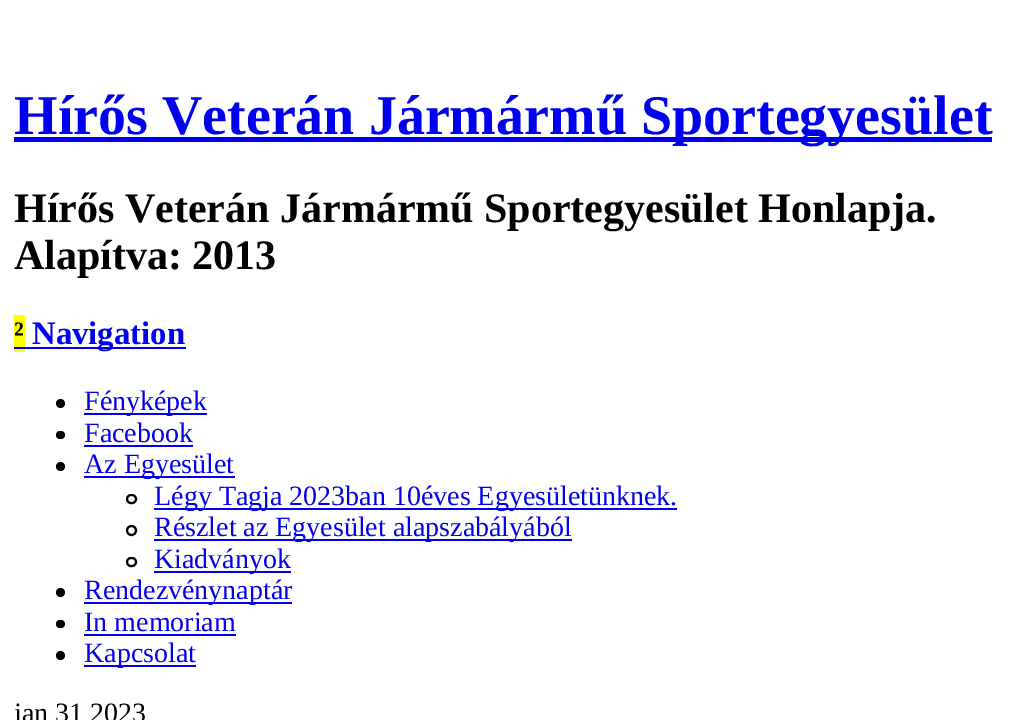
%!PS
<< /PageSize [1012 720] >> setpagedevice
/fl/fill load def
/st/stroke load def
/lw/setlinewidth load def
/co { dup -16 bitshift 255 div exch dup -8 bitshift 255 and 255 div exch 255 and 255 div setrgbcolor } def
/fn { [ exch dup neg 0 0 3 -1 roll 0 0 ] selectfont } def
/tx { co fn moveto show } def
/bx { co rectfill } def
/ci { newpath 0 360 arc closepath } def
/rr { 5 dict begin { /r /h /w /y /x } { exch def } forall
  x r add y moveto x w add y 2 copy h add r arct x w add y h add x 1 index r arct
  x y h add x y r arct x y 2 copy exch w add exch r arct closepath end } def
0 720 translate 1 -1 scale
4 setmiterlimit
0 0 1012 720 16#FFFFFF bx
14 137 978 5 16#0000EE bx
14 315 11 37 16#FFFF00 bx
14 347 172 2 16#0000EE bx
16#000000 co
60.5 403.5 4.5 ci fl
84 413 123 2 16#0000EE bx
16#000000 co
56 431 9 8 4 rr fl
84 445 109 2 16#0000EE bx
16#000000 co
60.5 466.5 4.5 ci fl
84 476 151 2 16#0000EE bx
16#000000 co
2 lw
127 495 9 8 4 rr st
154 508 523 2 16#0000EE bx
16#000000 co
131.5 530.5 4.5 ci st
154 539 418 2 16#0000EE bx
16#000000 co
127 558 9 8 4 rr st
154 571 137 2 16#0000EE bx
16#000000 co
60.5 592.5 4.5 ci fl
84 602 208 2 16#0000EE bx
16#000000 co
56 620 9 8 4 rr fl
84 634 152 2 16#0000EE bx
16#000000 co
60.5 655.5 4.5 ci fl
84 665 112 2 16#0000EE bx
(Hírős Veterán Jármármű Sportegyesület) 14 134 /LiberationSerif-Bold 56 16#0000EE tx
(Hírős Veterán Jármármű Sportegyesület Honlapja.) 14 222 /LiberationSerif-Bold 42 16#000000 tx
(Alapítva: 2013) 14 269 /LiberationSerif-Bold 42 16#000000 tx
(²) 14 344 /LiberationSerif-Bold 32.75 16#000000 tx
(Navigation) 32 344 /LiberationSerif-Bold 32.75 16#0000EE tx
(Fényképek) 84 410 /LiberationSerif-Regular 28 16#0000EE tx
(Facebook) 84 442 /LiberationSerif-Regular 28 16#0000EE tx
(Az Egyesület) 84 473 /LiberationSerif-Regular 28 16#0000EE tx
(Légy Tagja 2023ban 10éves Egyesületünknek.) 154 505 /LiberationSerif-Regular 28 16#0000EE tx
(Részlet az Egyesület alapszabályából) 154 536 /LiberationSerif-Regular 28 16#0000EE tx
(Kiadványok) 154 568 /LiberationSerif-Regular 28 16#0000EE tx
(Rendezvénynaptár) 84 599 /LiberationSerif-Regular 28 16#0000EE tx
(In memoriam) 84 631 /LiberationSerif-Regular 28 16#0000EE tx
(Kapcsolat) 84 662 /LiberationSerif-Regular 28 16#0000EE tx
(jan 31 2023) 14 722 /LiberationSerif-Regular 28 16#000000 tx
showpage
